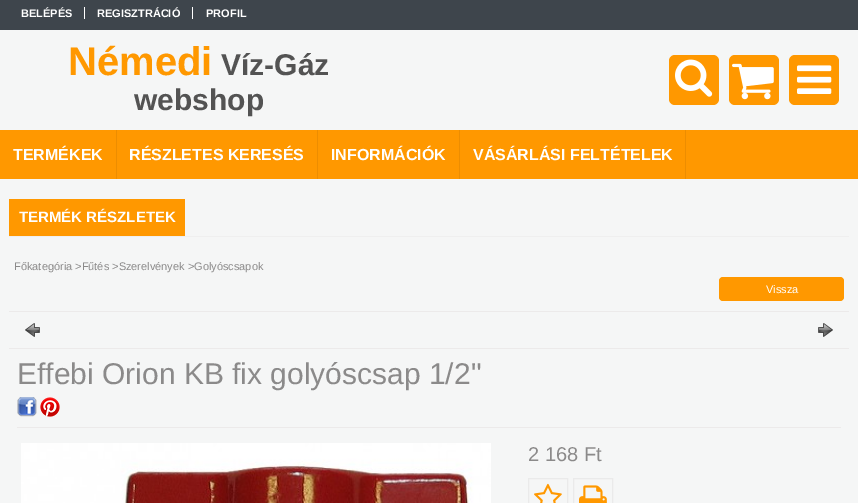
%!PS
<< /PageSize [858 503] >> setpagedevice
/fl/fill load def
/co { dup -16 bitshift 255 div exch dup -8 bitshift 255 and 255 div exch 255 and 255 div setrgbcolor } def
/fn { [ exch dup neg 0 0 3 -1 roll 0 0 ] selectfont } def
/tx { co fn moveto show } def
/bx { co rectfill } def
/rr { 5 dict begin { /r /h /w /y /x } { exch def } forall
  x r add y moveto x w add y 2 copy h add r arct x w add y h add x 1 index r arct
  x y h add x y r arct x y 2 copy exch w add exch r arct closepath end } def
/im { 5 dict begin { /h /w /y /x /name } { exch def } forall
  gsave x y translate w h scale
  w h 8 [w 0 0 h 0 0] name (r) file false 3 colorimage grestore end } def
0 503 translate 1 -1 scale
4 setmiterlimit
0 0 858 503 16#F5F6F6 bx
0 0 858 30 16#3E454C bx
84 7 1 12 16#FFFFFF bx
192 7 1 12 16#FFFFFF bx
16#FF9800 co
669 55 50 50 6 rr fl
(media/1.raw) 675 59 38 38 im
729 55 50 50 6 rr fl
(media/2.raw) 732 63 42 37 im
789 55 50 50 6 rr fl
(media/3.raw) 797 65 35 29 im
0 130 858 49 16#FF9800 bx
116 130 1 49 16#ED8D00 bx
317 130 1 49 16#ED8D00 bx
459 130 1 49 16#ED8D00 bx
685 130 1 49 16#ED8D00 bx
9 236 840 1 16#EFEFEF bx
9 199 176 37 16#FF9800 bx
719 277 125 24 4 rr fl
9 311 840 1 16#ECEAEA bx
(media/4.raw) 25 323 15 14 im
(media/5.raw) 818 323 15 14 im
9 348 840 1 16#ECEAEA bx
17 427 824 1 16#ECEAEA bx
(media/6.raw) 17 397 20 20 im
(media/7.raw) 40 397 20 20 im
(media/8.raw) 21 443 470 60 im
16#EAEAEA co
528.5 478.5 39 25 rectstroke
(media/9.raw) 534 483 28 20 im
573.5 478.5 39 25 rectstroke
(media/10.raw) 579 485 28 18 im
(BELÉPÉS) 21 17 /LiberationSans-Bold 11 16#FFFFFF tx
(REGISZTRÁCIÓ) 97 17 /LiberationSans-Bold 11 16#FFFFFF tx
(PROFIL) 206 17 /LiberationSans-Bold 11 16#FFFFFF tx
(Némedi) 68 75 /LiberationSans-Bold 40 16#FF9800 tx
(Víz-Gáz) 221 75 /LiberationSans-Bold 30 16#535353 tx
(webshop) 134 110 /LiberationSans-Bold 30 16#535353 tx
(TERMÉKEK) 13 160 /LiberationSans-Bold 16 16#FFFFFF tx
(RÉSZLETES KERESÉS) 129 160 /LiberationSans-Bold 16 16#FFFFFF tx
(INFORMÁCIÓK) 331 160 /LiberationSans-Bold 16 16#FFFFFF tx
(VÁSÁRLÁSI FELTÉTELEK) 473 160 /LiberationSans-Bold 16 16#FFFFFF tx
(TERMÉK RÉSZLETEK) 19 222 /LiberationSans-Bold 15 16#FFFFFF tx
(Főkategória >Fűtés >Szerelvények >Golyóscsapok) 14 270 /LiberationSans-Regular 11 16#8B8A8A tx
(Vissza) 766 293 /LiberationSans-Regular 11 16#FFFFFF tx
(Effebi Orion KB fix golyóscsap 1/2") 17 384 /LiberationSans-Regular 30 16#8B8A8A tx
(2 168 Ft) 528 461 /LiberationSans-Regular 20 16#8B8A8A tx
showpage
